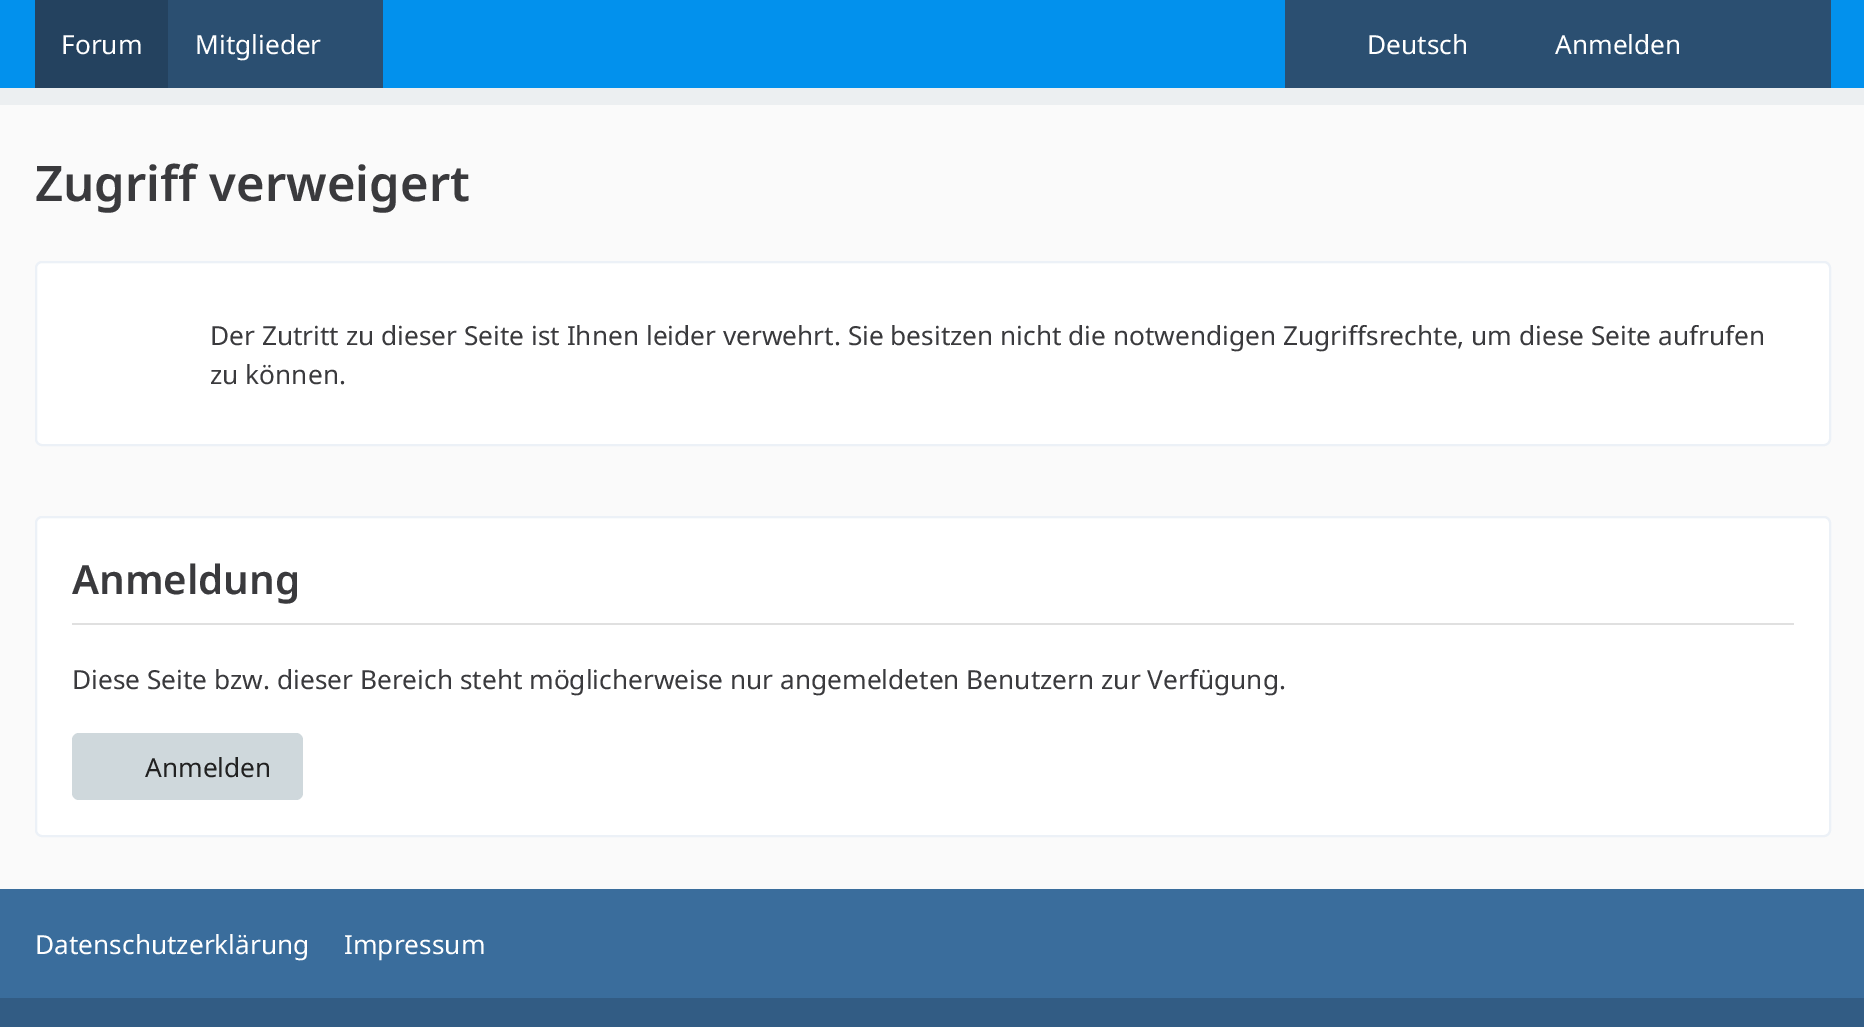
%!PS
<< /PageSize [1864 1027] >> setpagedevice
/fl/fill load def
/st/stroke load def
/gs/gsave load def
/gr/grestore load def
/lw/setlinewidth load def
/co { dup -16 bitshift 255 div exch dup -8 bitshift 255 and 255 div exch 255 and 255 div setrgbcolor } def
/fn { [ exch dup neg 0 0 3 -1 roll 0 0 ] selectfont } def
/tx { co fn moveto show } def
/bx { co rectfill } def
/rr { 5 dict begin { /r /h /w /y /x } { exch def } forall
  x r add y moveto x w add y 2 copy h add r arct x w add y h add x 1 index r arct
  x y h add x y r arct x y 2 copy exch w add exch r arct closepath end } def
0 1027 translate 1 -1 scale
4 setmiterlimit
0 0 1864 1027 16#FAFAFA bx
0 0 1864 88 16#0291ED bx
35 0 133 88 16#24425F bx
168 0 215 88 16#2B4F71 bx
1285 0 546 88 16#2B4F71 bx
0 88 1864 17 16#ECEFF1 bx
16#FFFFFF co
36 262 1794 183 6 rr gs fl gr
16#ECF1F7 co
2 lw
st
16#FFFFFF co
36 517 1794 319 6 rr gs fl gr
16#ECF1F7 co
st
72 623 1722 2 16#E0E0E0 bx
16#CFD8DC co
72 733 231 67 7 rr fl
0 889 1864 109 16#3A6D9C bx
0 998 1864 29 16#325C84 bx
(Forum) 61 54 /NotoSans-Regular 26.25 16#FFFFFF tx
(Mitglieder) 195 54 /NotoSans-Regular 26.25 16#FFFFFF tx
(Deutsch) 1367 54 /NotoSans-Regular 26.25 16#FFFFFF tx
(Anmelden) 1555 54 /NotoSans-Regular 26.25 16#FFFFFF tx
(Zugriff verweigert) 35 201 /NotoSans-SemiBold 49 16#3A3A3D tx
(Der Zutritt zu dieser Seite ist Ihnen leider verwehrt. Sie besitzen nicht die notwendigen Zugriffsrechte, um diese Seite aufrufen) 210 345 /NotoSans-Regular 26.25 16#3A3A3D tx
(zu können.) 210 384 /NotoSans-Regular 26.25 16#3A3A3D tx
(Anmeldung) 72 594 /NotoSans-SemiBold 40.25 16#3A3A3D tx
(Diese Seite bzw. dieser Bereich steht möglicherweise nur angemeldeten Benutzern zur Verfügung.) 72 689 /NotoSans-Regular 26.25 16#3A3A3D tx
(Anmelden) 145 777 /NotoSans-Regular 26.25 16#212121 tx
(Datenschutzerklärung) 35 954 /NotoSans-Regular 26.25 16#FFFFFF tx
(Impressum) 344 954 /NotoSans-Regular 26.25 16#FFFFFF tx
showpage
